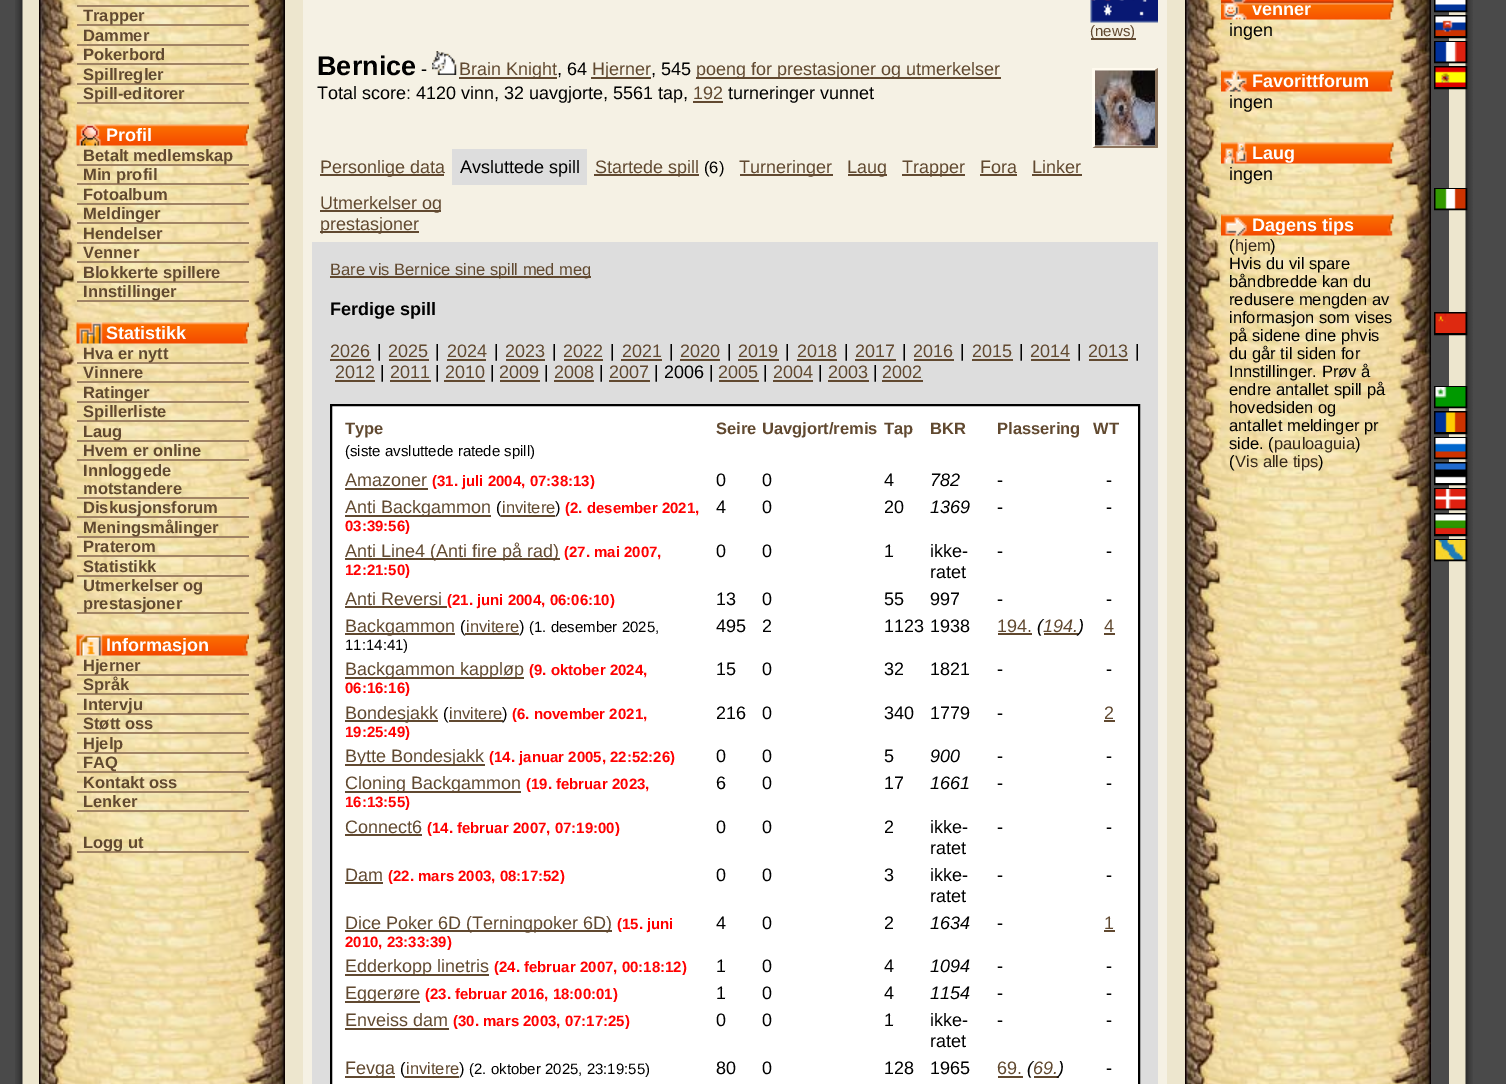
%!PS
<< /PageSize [1506 1084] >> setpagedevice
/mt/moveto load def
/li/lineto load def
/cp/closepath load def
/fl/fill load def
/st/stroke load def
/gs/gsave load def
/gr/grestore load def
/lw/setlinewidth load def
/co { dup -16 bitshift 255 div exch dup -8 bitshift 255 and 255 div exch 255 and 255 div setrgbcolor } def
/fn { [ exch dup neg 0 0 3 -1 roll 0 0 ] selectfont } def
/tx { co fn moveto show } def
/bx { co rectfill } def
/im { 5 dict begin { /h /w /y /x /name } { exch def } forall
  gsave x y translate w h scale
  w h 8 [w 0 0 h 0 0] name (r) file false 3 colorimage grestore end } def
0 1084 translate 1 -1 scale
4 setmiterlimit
0 0 1506 1084 16#4A4A4A bx
(media/1.raw) 15 0 24 1084 im
(media/2.raw) 39 0 246 1084 im
77 5 172 2 16#A08364 bx
77 24 172 2 16#A08364 bx
77 44 172 2 16#A08364 bx
77 63 172 2 16#A08364 bx
77 83 172 2 16#A08364 bx
77 102 172 2 16#A08364 bx
(media/3.raw) 76 124 173 22 im
77 164 172 2 16#A08364 bx
77 183 172 2 16#A08364 bx
77 203 172 2 16#A08364 bx
77 222 172 2 16#A08364 bx
77 242 172 2 16#A08364 bx
77 261 172 2 16#A08364 bx
77 281 172 2 16#A08364 bx
77 300 172 2 16#A08364 bx
(media/4.raw) 76 322 173 22 im
77 362 172 2 16#A08364 bx
77 381 172 2 16#A08364 bx
77 401 172 2 16#A08364 bx
77 420 172 2 16#A08364 bx
77 440 172 2 16#A08364 bx
77 459 172 2 16#A08364 bx
77 497 172 2 16#A08364 bx
77 516 172 2 16#A08364 bx
77 536 172 2 16#A08364 bx
77 555 172 2 16#A08364 bx
77 575 172 2 16#A08364 bx
77 612 172 2 16#A08364 bx
(media/5.raw) 76 634 173 22 im
77 674 172 2 16#A08364 bx
77 693 172 2 16#A08364 bx
77 713 172 2 16#A08364 bx
77 732 172 2 16#A08364 bx
77 752 172 2 16#A08364 bx
77 771 172 2 16#A08364 bx
77 791 172 2 16#A08364 bx
77 810 172 2 16#A08364 bx
77 851 172 2 16#A08364 bx
285 0 900 1084 16#EDE6CE bx
303 0 864 1084 16#F5F1E4 bx
(media/6.raw) 1090 0 68 23 im
1091 38 45 2 16#614930 bx
(media/7.raw) 432 51 25 24 im
459 77 98 2 16#614930 bx
591 77 60 2 16#614930 bx
696 77 305 2 16#614930 bx
693 101 30 2 16#614930 bx
16#FFFAEE co
1092 68 mt 1158 68 li 1155 70 li 1095 70 li cp fl
16#8B735C co
1158 68 mt 1158 148 li 1155 146 li 1155 70 li cp fl
1158 148 mt 1092 148 li 1095 146 li 1155 146 li cp fl
16#FFFAEE co
1092 148 mt 1092 68 li 1095 70 li 1095 146 li cp fl
(media/8.raw) 1095 70 60 76 im
320 174 124 2 16#614930 bx
452 149 135 36 16#DDDDDD bx
594 174 105 2 16#614930 bx
740 174 93 2 16#614930 bx
848 174 39 2 16#614930 bx
902 174 63 2 16#614930 bx
980 174 37 2 16#614930 bx
1032 174 50 2 16#614930 bx
320 210 121 2 16#614930 bx
320 231 99 2 16#614930 bx
312 242 846 842 16#DDDDDD bx
330 276 261 2 16#614930 bx
330 359 41 2 16#614930 bx
389 359 40 2 16#614930 bx
447 359 39 2 16#614930 bx
506 359 39 2 16#614930 bx
564 359 39 2 16#614930 bx
621 359 41 2 16#614930 bx
680 359 40 2 16#614930 bx
738 359 41 2 16#614930 bx
797 359 40 2 16#614930 bx
855 359 41 2 16#614930 bx
914 359 40 2 16#614930 bx
972 359 41 2 16#614930 bx
1031 359 39 2 16#614930 bx
1089 359 39 2 16#614930 bx
335 380 40 2 16#614930 bx
390 380 41 2 16#614930 bx
444 380 41 2 16#614930 bx
500 380 40 2 16#614930 bx
554 380 40 2 16#614930 bx
609 380 41 2 16#614930 bx
719 380 40 2 16#614930 bx
773 380 40 2 16#614930 bx
828 380 41 2 16#614930 bx
882 380 41 2 16#614930 bx
16#FFFFFF co
331 405 mt 1139 405 li 1139 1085 li 331 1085 li cp gs fl gr
16#000000 co
2 lw
st
345 488 83 2 16#614930 bx
345 515 146 2 16#614930 bx
345 558 215 2 16#614930 bx
345 606 102 2 16#614930 bx
345 633 110 2 16#614930 bx
998 633 34 2 16#614930 bx
1104 633 11 2 16#614930 bx
345 677 179 2 16#614930 bx
345 720 93 2 16#614930 bx
449 720 54 2 16#614930 bx
1104 720 11 2 16#614930 bx
345 764 140 2 16#614930 bx
345 791 176 2 16#614930 bx
345 834 77 2 16#614930 bx
345 882 38 2 16#614930 bx
345 930 267 2 16#614930 bx
1104 930 11 2 16#614930 bx
345 974 144 2 16#614930 bx
345 1001 75 2 16#614930 bx
345 1028 104 2 16#614930 bx
345 1076 50 2 16#614930 bx
998 1076 25 2 16#614930 bx
(media/9.raw) 1185 0 246 1084 im
(media/10.raw) 1221 0 173 20 im
(media/11.raw) 1221 70 173 22 im
(media/12.raw) 1221 142 173 22 im
(media/13.raw) 1221 214 173 22 im
(media/14.raw) 1449 0 24 1084 im
16#000000 co
1435 -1 31 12 rectstroke
(media/15.raw) 1435 0 31 11 im
1435 16 31 21 rectstroke
(media/16.raw) 1435 16 31 20 im
1435 42 31 20 rectstroke
(media/17.raw) 1435 42 31 20 im
1435 67 31 21 rectstroke
(media/18.raw) 1435 67 31 20 im
1435 189 31 20 rectstroke
(media/19.raw) 1435 189 31 20 im
1435 313 31 21 rectstroke
(media/20.raw) 1435 313 31 20 im
1435 387 31 20 rectstroke
(media/21.raw) 1435 387 31 20 im
1435 412 31 21 rectstroke
(media/22.raw) 1435 412 31 20 im
1435 438 31 20 rectstroke
(media/23.raw) 1435 438 31 20 im
1435 463 31 21 rectstroke
(media/24.raw) 1435 463 31 20 im
1435 489 31 20 rectstroke
(media/25.raw) 1435 489 31 20 im
1435 514 31 21 rectstroke
(media/26.raw) 1435 514 31 20 im
1435 540 31 20 rectstroke
(media/27.raw) 1435 540 31 20 im
(Trapper) 83 21 /LiberationSans-Bold 16.5 16#614930 tx
(Dammer) 83 41 /LiberationSans-Bold 16.5 16#614930 tx
(Pokerbord) 83 60 /LiberationSans-Bold 16.5 16#614930 tx
(Spillregler) 83 80 /LiberationSans-Bold 16.5 16#614930 tx
(Spill-editorer) 83 99 /LiberationSans-Bold 16.5 16#614930 tx
(Profil) 106 141 /LiberationSans-Bold 18 16#FFFFFF tx
(Betalt medlemskap) 83 161 /LiberationSans-Bold 16.5 16#614930 tx
(Min profil) 83 180 /LiberationSans-Bold 16.5 16#614930 tx
(Fotoalbum) 83 200 /LiberationSans-Bold 16.5 16#614930 tx
(Meldinger) 83 219 /LiberationSans-Bold 16.5 16#614930 tx
(Hendelser) 83 239 /LiberationSans-Bold 16.5 16#614930 tx
(Venner) 83 258 /LiberationSans-Bold 16.5 16#614930 tx
(Blokkerte spillere) 83 278 /LiberationSans-Bold 16.5 16#614930 tx
(Innstillinger) 83 297 /LiberationSans-Bold 16.5 16#614930 tx
(Statistikk) 106 339 /LiberationSans-Bold 18 16#FFFFFF tx
(Hva er nytt) 83 359 /LiberationSans-Bold 16.5 16#614930 tx
(Vinnere) 83 378 /LiberationSans-Bold 16.5 16#614930 tx
(Ratinger) 83 398 /LiberationSans-Bold 16.5 16#614930 tx
(Spillerliste) 83 417 /LiberationSans-Bold 16.5 16#614930 tx
(Laug) 83 437 /LiberationSans-Bold 16.5 16#614930 tx
(Hvem er online) 83 456 /LiberationSans-Bold 16.5 16#614930 tx
(Innloggede) 83 476 /LiberationSans-Bold 16.5 16#614930 tx
(motstandere) 83 494 /LiberationSans-Bold 16.5 16#614930 tx
(Diskusjonsforum) 83 513 /LiberationSans-Bold 16.5 16#614930 tx
(Meningsmålinger) 83 533 /LiberationSans-Bold 16.5 16#614930 tx
(Praterom) 83 552 /LiberationSans-Bold 16.5 16#614930 tx
(Statistikk) 83 572 /LiberationSans-Bold 16.5 16#614930 tx
(Utmerkelser og) 83 591 /LiberationSans-Bold 16.5 16#614930 tx
(prestasjoner) 83 609 /LiberationSans-Bold 16.5 16#614930 tx
(Informasjon) 106 651 /LiberationSans-Bold 18 16#FFFFFF tx
(Hjerner) 83 671 /LiberationSans-Bold 16.5 16#614930 tx
(Språk) 83 690 /LiberationSans-Bold 16.5 16#614930 tx
(Intervju) 83 710 /LiberationSans-Bold 16.5 16#614930 tx
(Støtt oss) 83 729 /LiberationSans-Bold 16.5 16#614930 tx
(Hjelp) 83 749 /LiberationSans-Bold 16.5 16#614930 tx
(FAQ) 83 768 /LiberationSans-Bold 16.5 16#614930 tx
(Kontakt oss) 83 788 /LiberationSans-Bold 16.5 16#614930 tx
(Lenker) 83 807 /LiberationSans-Bold 16.5 16#614930 tx
(Logg ut) 83 848 /LiberationSans-Bold 16.5 16#614930 tx
(\(news\)) 1090 36 /LiberationSans-Regular 15 16#614930 tx
(Bernice) 317 75 /LiberationSans-Bold 27 16#000000 tx
(-) 421 75 /LiberationSans-Regular 18 16#000000 tx
(Brain Knight) 459 75 /LiberationSans-Regular 18 16#614930 tx
(, 64) 557 75 /LiberationSans-Regular 18 16#000000 tx
(Hjerner) 592 75 /LiberationSans-Regular 18 16#614930 tx
(, 545) 651 75 /LiberationSans-Regular 18 16#000000 tx
(poeng for prestasjoner og utmerkelser) 696 75 /LiberationSans-Regular 18 16#614930 tx
(Total score: 4120 vinn, 32 uavgjorte, 5561 tap,) 317 99 /LiberationSans-Regular 18 16#000000 tx
(192) 693 99 /LiberationSans-Regular 18 16#614930 tx
(turneringer vunnet) 728 99 /LiberationSans-Regular 18 16#000000 tx
(Personlige data) 320 173 /LiberationSans-Regular 18 16#614930 tx
(Avsluttede spill) 460 173 /LiberationSans-Regular 18 16#000000 tx
(Startede spill) 595 173 /LiberationSans-Regular 18 16#614930 tx
(\(6\)) 704 173 /LiberationSans-Regular 16.5 16#000000 tx
(Turneringer) 739 173 /LiberationSans-Regular 18 16#614930 tx
(Laug) 847 173 /LiberationSans-Regular 18 16#614930 tx
(Trapper) 902 173 /LiberationSans-Regular 18 16#614930 tx
(Fora) 980 173 /LiberationSans-Regular 18 16#614930 tx
(Linker) 1032 173 /LiberationSans-Regular 18 16#614930 tx
(Utmerkelser og) 320 209 /LiberationSans-Regular 18 16#614930 tx
(prestasjoner) 320 230 /LiberationSans-Regular 18 16#614930 tx
(Bare vis Bernice sine spill med meg) 330 275 /LiberationSans-Regular 16.5 16#614930 tx
(Ferdige spill) 330 315 /LiberationSans-Bold 18 16#000000 tx
(2026) 330 357 /LiberationSans-Regular 18 16#614930 tx
(|) 377 357 /LiberationSans-Regular 18 16#000000 tx
(2025) 388 357 /LiberationSans-Regular 18 16#614930 tx
(|) 435 357 /LiberationSans-Regular 18 16#000000 tx
(2024) 447 357 /LiberationSans-Regular 18 16#614930 tx
(|) 494 357 /LiberationSans-Regular 18 16#000000 tx
(2023) 505 357 /LiberationSans-Regular 18 16#614930 tx
(|) 552 357 /LiberationSans-Regular 18 16#000000 tx
(2022) 563 357 /LiberationSans-Regular 18 16#614930 tx
(|) 610 357 /LiberationSans-Regular 18 16#000000 tx
(2021) 622 357 /LiberationSans-Regular 18 16#614930 tx
(|) 669 357 /LiberationSans-Regular 18 16#000000 tx
(2020) 680 357 /LiberationSans-Regular 18 16#614930 tx
(|) 727 357 /LiberationSans-Regular 18 16#000000 tx
(2019) 738 357 /LiberationSans-Regular 18 16#614930 tx
(|) 785 357 /LiberationSans-Regular 18 16#000000 tx
(2018) 797 357 /LiberationSans-Regular 18 16#614930 tx
(|) 844 357 /LiberationSans-Regular 18 16#000000 tx
(2017) 855 357 /LiberationSans-Regular 18 16#614930 tx
(|) 902 357 /LiberationSans-Regular 18 16#000000 tx
(2016) 913 357 /LiberationSans-Regular 18 16#614930 tx
(|) 960 357 /LiberationSans-Regular 18 16#000000 tx
(2015) 972 357 /LiberationSans-Regular 18 16#614930 tx
(|) 1019 357 /LiberationSans-Regular 18 16#000000 tx
(2014) 1030 357 /LiberationSans-Regular 18 16#614930 tx
(|) 1077 357 /LiberationSans-Regular 18 16#000000 tx
(2013) 1088 357 /LiberationSans-Regular 18 16#614930 tx
(|) 1135 357 /LiberationSans-Regular 18 16#000000 tx
(2012) 335 378 /LiberationSans-Regular 18 16#614930 tx
(|) 380 378 /LiberationSans-Regular 18 16#000000 tx
(2011) 390 378 /LiberationSans-Regular 18 16#614930 tx
(|) 435 378 /LiberationSans-Regular 18 16#000000 tx
(2010) 445 378 /LiberationSans-Regular 18 16#614930 tx
(|) 490 378 /LiberationSans-Regular 18 16#000000 tx
(2009) 499 378 /LiberationSans-Regular 18 16#614930 tx
(|) 544 378 /LiberationSans-Regular 18 16#000000 tx
(2008) 554 378 /LiberationSans-Regular 18 16#614930 tx
(|) 599 378 /LiberationSans-Regular 18 16#000000 tx
(2007) 609 378 /LiberationSans-Regular 18 16#614930 tx
(| 2006 |) 654 378 /LiberationSans-Regular 18 16#000000 tx
(2005) 718 378 /LiberationSans-Regular 18 16#614930 tx
(|) 763 378 /LiberationSans-Regular 18 16#000000 tx
(2004) 773 378 /LiberationSans-Regular 18 16#614930 tx
(|) 818 378 /LiberationSans-Regular 18 16#000000 tx
(2003) 828 378 /LiberationSans-Regular 18 16#614930 tx
(|) 873 378 /LiberationSans-Regular 18 16#000000 tx
(2002) 882 378 /LiberationSans-Regular 18 16#614930 tx
(Type) 345 434 /LiberationSans-Bold 16.5 16#614930 tx
(Seire) 716 434 /LiberationSans-Bold 16.5 16#614930 tx
(Uavgjort/remis) 762 434 /LiberationSans-Bold 16.5 16#614930 tx
(Tap) 884 434 /LiberationSans-Bold 16.5 16#614930 tx
(BKR) 930 434 /LiberationSans-Bold 16.5 16#614930 tx
(Plassering) 997 434 /LiberationSans-Bold 16.5 16#614930 tx
(WT) 1093 434 /LiberationSans-Bold 16.5 16#614930 tx
(\(siste avsluttede ratede spill\)) 345 456 /LiberationSans-Regular 15 16#000000 tx
(Amazoner) 345 486 /LiberationSans-Regular 18 16#614930 tx
(\(31. juli 2004, 07:38:13\)) 432 486 /LiberationSans-Bold 15 16#FF0000 tx
(0) 716 486 /LiberationSans-Regular 18 16#000000 tx
(0) 762 486 /LiberationSans-Regular 18 16#000000 tx
(4) 884 486 /LiberationSans-Regular 18 16#000000 tx
(782) 930 486 /LiberationSans-Italic 18 16#000000 tx
(-) 997 486 /LiberationSans-Regular 18 16#000000 tx
(-) 1106 486 /LiberationSans-Regular 18 16#000000 tx
(Anti Backgammon) 345 513 /LiberationSans-Regular 18 16#614930 tx
(\() 496 513 /LiberationSans-Regular 16.5 16#000000 tx
501 515 54 2 16#614930 bx
(invitere) 502 513 /LiberationSans-Regular 16.5 16#614930 tx
(\)) 555 513 /LiberationSans-Regular 16.5 16#000000 tx
(\(2. desember 2021,) 565 513 /LiberationSans-Bold 15 16#FF0000 tx
(03:39:56\)) 345 531 /LiberationSans-Bold 15 16#FF0000 tx
(4) 716 513 /LiberationSans-Regular 18 16#000000 tx
(0) 762 513 /LiberationSans-Regular 18 16#000000 tx
(20) 884 513 /LiberationSans-Regular 18 16#000000 tx
(1369) 930 513 /LiberationSans-Italic 18 16#000000 tx
(-) 997 513 /LiberationSans-Regular 18 16#000000 tx
(-) 1106 513 /LiberationSans-Regular 18 16#000000 tx
(Anti Line4 \(Anti fire på rad\)) 345 557 /LiberationSans-Regular 18 16#614930 tx
(\(27. mai 2007,) 564 557 /LiberationSans-Bold 15 16#FF0000 tx
(12:21:50\)) 345 575 /LiberationSans-Bold 15 16#FF0000 tx
(0) 716 557 /LiberationSans-Regular 18 16#000000 tx
(0) 762 557 /LiberationSans-Regular 18 16#000000 tx
(1) 884 557 /LiberationSans-Regular 18 16#000000 tx
(ikke-) 930 557 /LiberationSans-Regular 18 16#000000 tx
(ratet) 930 578 /LiberationSans-Regular 18 16#000000 tx
(-) 997 557 /LiberationSans-Regular 18 16#000000 tx
(-) 1106 557 /LiberationSans-Regular 18 16#000000 tx
(Anti Reversi) 345 605 /LiberationSans-Regular 18 16#614930 tx
(\(21. juni 2004, 06:06:10\)) 447 605 /LiberationSans-Bold 15 16#FF0000 tx
(13) 716 605 /LiberationSans-Regular 18 16#000000 tx
(0) 762 605 /LiberationSans-Regular 18 16#000000 tx
(55) 884 605 /LiberationSans-Regular 18 16#000000 tx
(997) 930 605 /LiberationSans-Regular 18 16#000000 tx
(-) 997 605 /LiberationSans-Regular 18 16#000000 tx
(-) 1106 605 /LiberationSans-Regular 18 16#000000 tx
(Backgammon) 345 632 /LiberationSans-Regular 18 16#614930 tx
(\() 460 632 /LiberationSans-Regular 16.5 16#000000 tx
465 633 54 2 16#614930 bx
(invitere) 466 632 /LiberationSans-Regular 16.5 16#614930 tx
(\)) 519 632 /LiberationSans-Regular 16.5 16#000000 tx
(\(1. desember 2025,) 529 632 /LiberationSans-Regular 15 16#000000 tx
(11:14:41\)) 345 650 /LiberationSans-Regular 15 16#000000 tx
(495) 716 632 /LiberationSans-Regular 18 16#000000 tx
(2) 762 632 /LiberationSans-Regular 18 16#000000 tx
(1123) 884 632 /LiberationSans-Regular 18 16#000000 tx
(1938) 930 632 /LiberationSans-Regular 18 16#000000 tx
(194.) 997 632 /LiberationSans-Regular 18 16#614930 tx
(\() 1037 632 /LiberationSans-Italic 18 16#000000 tx
1044 633 35 2 16#614930 bx
(194.) 1043 632 /LiberationSans-Italic 18 16#614930 tx
(\)) 1078 632 /LiberationSans-Italic 18 16#000000 tx
(4) 1104 632 /LiberationSans-Regular 18 16#614930 tx
(Backgammon kappløp) 345 675 /LiberationSans-Regular 18 16#614930 tx
(\(9. oktober 2024,) 529 675 /LiberationSans-Bold 15 16#FF0000 tx
(06:16:16\)) 345 693 /LiberationSans-Bold 15 16#FF0000 tx
(15) 716 675 /LiberationSans-Regular 18 16#000000 tx
(0) 762 675 /LiberationSans-Regular 18 16#000000 tx
(32) 884 675 /LiberationSans-Regular 18 16#000000 tx
(1821) 930 675 /LiberationSans-Regular 18 16#000000 tx
(-) 997 675 /LiberationSans-Regular 18 16#000000 tx
(-) 1106 675 /LiberationSans-Regular 18 16#000000 tx
(Bondesjakk) 345 719 /LiberationSans-Regular 18 16#614930 tx
(\() 443 719 /LiberationSans-Regular 16.5 16#000000 tx
(invitere) 449 719 /LiberationSans-Regular 16.5 16#614930 tx
(\)) 502 719 /LiberationSans-Regular 16.5 16#000000 tx
(\(6. november 2021,) 512 719 /LiberationSans-Bold 15 16#FF0000 tx
(19:25:49\)) 345 737 /LiberationSans-Bold 15 16#FF0000 tx
(216) 716 719 /LiberationSans-Regular 18 16#000000 tx
(0) 762 719 /LiberationSans-Regular 18 16#000000 tx
(340) 884 719 /LiberationSans-Regular 18 16#000000 tx
(1779) 930 719 /LiberationSans-Regular 18 16#000000 tx
(-) 997 719 /LiberationSans-Regular 18 16#000000 tx
(2) 1104 719 /LiberationSans-Regular 18 16#614930 tx
(Bytte Bondesjakk) 345 762 /LiberationSans-Regular 18 16#614930 tx
(\(14. januar 2005, 22:52:26\)) 489 762 /LiberationSans-Bold 15 16#FF0000 tx
(0) 716 762 /LiberationSans-Regular 18 16#000000 tx
(0) 762 762 /LiberationSans-Regular 18 16#000000 tx
(5) 884 762 /LiberationSans-Regular 18 16#000000 tx
(900) 930 762 /LiberationSans-Italic 18 16#000000 tx
(-) 997 762 /LiberationSans-Regular 18 16#000000 tx
(-) 1106 762 /LiberationSans-Regular 18 16#000000 tx
(Cloning Backgammon) 345 789 /LiberationSans-Regular 18 16#614930 tx
(\(19. februar 2023,) 526 789 /LiberationSans-Bold 15 16#FF0000 tx
(16:13:55\)) 345 807 /LiberationSans-Bold 15 16#FF0000 tx
(6) 716 789 /LiberationSans-Regular 18 16#000000 tx
(0) 762 789 /LiberationSans-Regular 18 16#000000 tx
(17) 884 789 /LiberationSans-Regular 18 16#000000 tx
(1661) 930 789 /LiberationSans-Italic 18 16#000000 tx
(-) 997 789 /LiberationSans-Regular 18 16#000000 tx
(-) 1106 789 /LiberationSans-Regular 18 16#000000 tx
(Connect6) 345 833 /LiberationSans-Regular 18 16#614930 tx
(\(14. februar 2007, 07:19:00\)) 427 833 /LiberationSans-Bold 15 16#FF0000 tx
(0) 716 833 /LiberationSans-Regular 18 16#000000 tx
(0) 762 833 /LiberationSans-Regular 18 16#000000 tx
(2) 884 833 /LiberationSans-Regular 18 16#000000 tx
(ikke-) 930 833 /LiberationSans-Regular 18 16#000000 tx
(ratet) 930 854 /LiberationSans-Regular 18 16#000000 tx
(-) 997 833 /LiberationSans-Regular 18 16#000000 tx
(-) 1106 833 /LiberationSans-Regular 18 16#000000 tx
(Dam) 345 881 /LiberationSans-Regular 18 16#614930 tx
(\(22. mars 2003, 08:17:52\)) 388 881 /LiberationSans-Bold 15 16#FF0000 tx
(0) 716 881 /LiberationSans-Regular 18 16#000000 tx
(0) 762 881 /LiberationSans-Regular 18 16#000000 tx
(3) 884 881 /LiberationSans-Regular 18 16#000000 tx
(ikke-) 930 881 /LiberationSans-Regular 18 16#000000 tx
(ratet) 930 902 /LiberationSans-Regular 18 16#000000 tx
(-) 997 881 /LiberationSans-Regular 18 16#000000 tx
(-) 1106 881 /LiberationSans-Regular 18 16#000000 tx
(Dice Poker 6D \(Terningpoker 6D\)) 345 929 /LiberationSans-Regular 18 16#614930 tx
(\(15. juni) 617 929 /LiberationSans-Bold 15 16#FF0000 tx
(2010, 23:33:39\)) 345 947 /LiberationSans-Bold 15 16#FF0000 tx
(4) 716 929 /LiberationSans-Regular 18 16#000000 tx
(0) 762 929 /LiberationSans-Regular 18 16#000000 tx
(2) 884 929 /LiberationSans-Regular 18 16#000000 tx
(1634) 930 929 /LiberationSans-Italic 18 16#000000 tx
(-) 997 929 /LiberationSans-Regular 18 16#000000 tx
(1) 1104 929 /LiberationSans-Regular 18 16#614930 tx
(Edderkopp linetris) 345 972 /LiberationSans-Regular 18 16#614930 tx
(\(24. februar 2007, 00:18:12\)) 494 972 /LiberationSans-Bold 15 16#FF0000 tx
(1) 716 972 /LiberationSans-Regular 18 16#000000 tx
(0) 762 972 /LiberationSans-Regular 18 16#000000 tx
(4) 884 972 /LiberationSans-Regular 18 16#000000 tx
(1094) 930 972 /LiberationSans-Italic 18 16#000000 tx
(-) 997 972 /LiberationSans-Regular 18 16#000000 tx
(-) 1106 972 /LiberationSans-Regular 18 16#000000 tx
(Eggerøre) 345 999 /LiberationSans-Regular 18 16#614930 tx
(\(23. februar 2016, 18:00:01\)) 425 999 /LiberationSans-Bold 15 16#FF0000 tx
(1) 716 999 /LiberationSans-Regular 18 16#000000 tx
(0) 762 999 /LiberationSans-Regular 18 16#000000 tx
(4) 884 999 /LiberationSans-Regular 18 16#000000 tx
(1154) 930 999 /LiberationSans-Italic 18 16#000000 tx
(-) 997 999 /LiberationSans-Regular 18 16#000000 tx
(-) 1106 999 /LiberationSans-Regular 18 16#000000 tx
(Enveiss dam) 345 1026 /LiberationSans-Regular 18 16#614930 tx
(\(30. mars 2003, 07:17:25\)) 453 1026 /LiberationSans-Bold 15 16#FF0000 tx
(0) 716 1026 /LiberationSans-Regular 18 16#000000 tx
(0) 762 1026 /LiberationSans-Regular 18 16#000000 tx
(1) 884 1026 /LiberationSans-Regular 18 16#000000 tx
(ikke-) 930 1026 /LiberationSans-Regular 18 16#000000 tx
(ratet) 930 1047 /LiberationSans-Regular 18 16#000000 tx
(-) 997 1026 /LiberationSans-Regular 18 16#000000 tx
(-) 1106 1026 /LiberationSans-Regular 18 16#000000 tx
(Fevga) 345 1074 /LiberationSans-Regular 18 16#614930 tx
(\() 400 1074 /LiberationSans-Regular 16.5 16#000000 tx
405 1076 54 2 16#614930 bx
(invitere) 406 1074 /LiberationSans-Regular 16.5 16#614930 tx
(\)) 459 1074 /LiberationSans-Regular 16.5 16#000000 tx
(\(2. oktober 2025, 23:19:55\)) 469 1074 /LiberationSans-Regular 15 16#000000 tx
(80) 716 1074 /LiberationSans-Regular 18 16#000000 tx
(0) 762 1074 /LiberationSans-Regular 18 16#000000 tx
(128) 884 1074 /LiberationSans-Regular 18 16#000000 tx
(1965) 930 1074 /LiberationSans-Regular 18 16#000000 tx
(69.) 997 1074 /LiberationSans-Regular 18 16#614930 tx
(\() 1027 1074 /LiberationSans-Italic 18 16#000000 tx
1034 1076 25 2 16#614930 bx
(69.) 1033 1074 /LiberationSans-Italic 18 16#614930 tx
(\)) 1058 1074 /LiberationSans-Italic 18 16#000000 tx
(-) 1106 1074 /LiberationSans-Regular 18 16#000000 tx
(venner) 1252 15 /LiberationSans-Bold 18 16#FFFFFF tx
(ingen) 1229 36 /LiberationSans-Regular 18 16#000000 tx
(Favorittforum) 1252 87 /LiberationSans-Bold 18 16#FFFFFF tx
(ingen) 1229 108 /LiberationSans-Regular 18 16#000000 tx
(Laug) 1252 159 /LiberationSans-Bold 18 16#FFFFFF tx
(ingen) 1229 180 /LiberationSans-Regular 18 16#000000 tx
(Dagens tips) 1252 231 /LiberationSans-Bold 18 16#FFFFFF tx
(\() 1229 251 /LiberationSans-Regular 16.5 16#000000 tx
(hjem) 1235 251 /LiberationSans-Regular 16.5 16#36281B tx
(\)) 1270 251 /LiberationSans-Regular 16.5 16#000000 tx
(Hvis du vil spare) 1229 269 /LiberationSans-Regular 16.5 16#000000 tx
(båndbredde kan du) 1229 287 /LiberationSans-Regular 16.5 16#000000 tx
(redusere mengden av) 1229 305 /LiberationSans-Regular 16.5 16#000000 tx
(informasjon som vises) 1229 323 /LiberationSans-Regular 16.5 16#000000 tx
(på sidene dine phvis) 1229 341 /LiberationSans-Regular 16.5 16#000000 tx
(du går til siden for) 1229 359 /LiberationSans-Regular 16.5 16#000000 tx
(Innstillinger. Prøv å) 1229 377 /LiberationSans-Regular 16.5 16#000000 tx
(endre antallet spill på) 1229 395 /LiberationSans-Regular 16.5 16#000000 tx
(hovedsiden og) 1229 413 /LiberationSans-Regular 16.5 16#000000 tx
(antallet meldinger pr) 1229 431 /LiberationSans-Regular 16.5 16#000000 tx
(side. \() 1229 449 /LiberationSans-Regular 16.5 16#000000 tx
(pauloaguia) 1274 449 /LiberationSans-Regular 16.5 16#36281B tx
(\)) 1355 449 /LiberationSans-Regular 16.5 16#000000 tx
(\() 1229 467 /LiberationSans-Regular 16.5 16#000000 tx
(Vis alle tips) 1235 467 /LiberationSans-Regular 16.5 16#36281B tx
(\)) 1318 467 /LiberationSans-Regular 16.5 16#000000 tx
showpage
